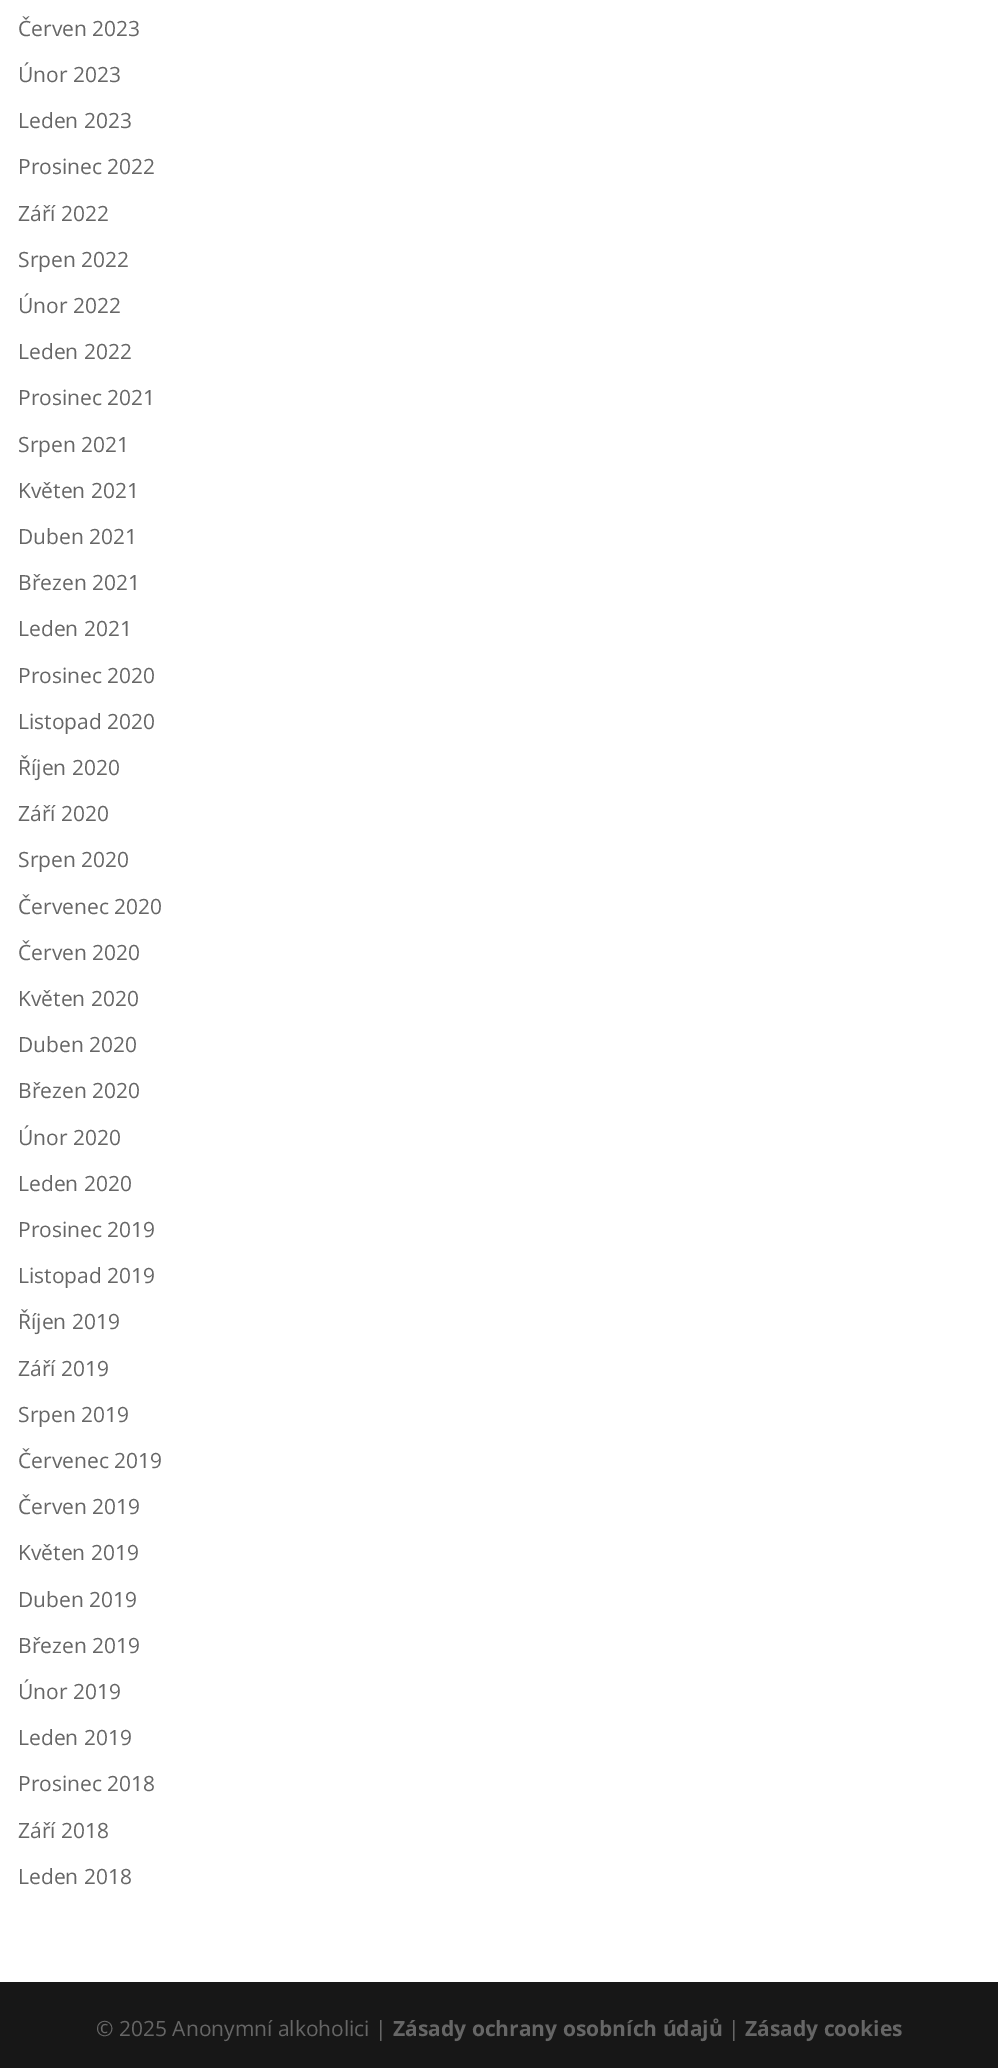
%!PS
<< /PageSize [998 2068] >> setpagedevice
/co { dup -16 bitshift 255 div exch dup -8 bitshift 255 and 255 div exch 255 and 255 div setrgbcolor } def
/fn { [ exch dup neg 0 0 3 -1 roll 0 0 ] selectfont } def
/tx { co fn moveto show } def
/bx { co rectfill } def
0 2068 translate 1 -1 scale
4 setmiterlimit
0 0 998 2068 16#FFFFFF bx
0 1982 998 86 16#171717 bx
(Červen 2023) 18 36 /OpenSans-Regular 21 16#666666 tx
(Únor 2023) 18 82 /OpenSans-Regular 21 16#666666 tx
(Leden 2023) 18 128 /OpenSans-Regular 21 16#666666 tx
(Prosinec 2022) 18 174 /OpenSans-Regular 21 16#666666 tx
(Září 2022) 18 221 /OpenSans-Regular 21 16#666666 tx
(Srpen 2022) 18 267 /OpenSans-Regular 21 16#666666 tx
(Únor 2022) 18 313 /OpenSans-Regular 21 16#666666 tx
(Leden 2022) 18 359 /OpenSans-Regular 21 16#666666 tx
(Prosinec 2021) 18 405 /OpenSans-Regular 21 16#666666 tx
(Srpen 2021) 18 452 /OpenSans-Regular 21 16#666666 tx
(Květen 2021) 18 498 /OpenSans-Regular 21 16#666666 tx
(Duben 2021) 18 544 /OpenSans-Regular 21 16#666666 tx
(Březen 2021) 18 590 /OpenSans-Regular 21 16#666666 tx
(Leden 2021) 18 636 /OpenSans-Regular 21 16#666666 tx
(Prosinec 2020) 18 683 /OpenSans-Regular 21 16#666666 tx
(Listopad 2020) 18 729 /OpenSans-Regular 21 16#666666 tx
(Říjen 2020) 18 775 /OpenSans-Regular 21 16#666666 tx
(Září 2020) 18 821 /OpenSans-Regular 21 16#666666 tx
(Srpen 2020) 18 867 /OpenSans-Regular 21 16#666666 tx
(Červenec 2020) 18 914 /OpenSans-Regular 21 16#666666 tx
(Červen 2020) 18 960 /OpenSans-Regular 21 16#666666 tx
(Květen 2020) 18 1006 /OpenSans-Regular 21 16#666666 tx
(Duben 2020) 18 1052 /OpenSans-Regular 21 16#666666 tx
(Březen 2020) 18 1098 /OpenSans-Regular 21 16#666666 tx
(Únor 2020) 18 1145 /OpenSans-Regular 21 16#666666 tx
(Leden 2020) 18 1191 /OpenSans-Regular 21 16#666666 tx
(Prosinec 2019) 18 1237 /OpenSans-Regular 21 16#666666 tx
(Listopad 2019) 18 1283 /OpenSans-Regular 21 16#666666 tx
(Říjen 2019) 18 1329 /OpenSans-Regular 21 16#666666 tx
(Září 2019) 18 1376 /OpenSans-Regular 21 16#666666 tx
(Srpen 2019) 18 1422 /OpenSans-Regular 21 16#666666 tx
(Červenec 2019) 18 1468 /OpenSans-Regular 21 16#666666 tx
(Červen 2019) 18 1514 /OpenSans-Regular 21 16#666666 tx
(Květen 2019) 18 1560 /OpenSans-Regular 21 16#666666 tx
(Duben 2019) 18 1607 /OpenSans-Regular 21 16#666666 tx
(Březen 2019) 18 1653 /OpenSans-Regular 21 16#666666 tx
(Únor 2019) 18 1699 /OpenSans-Regular 21 16#666666 tx
(Leden 2019) 18 1745 /OpenSans-Regular 21 16#666666 tx
(Prosinec 2018) 18 1791 /OpenSans-Regular 21 16#666666 tx
(Září 2018) 18 1838 /OpenSans-Regular 21 16#666666 tx
(Leden 2018) 18 1884 /OpenSans-Regular 21 16#666666 tx
(© 2025 Anonymní alkoholici |) 96 2036 /OpenSans-Regular 21 16#666666 tx
(Zásady ochrany osobních údajů) 393 2036 /OpenSans-Bold 21 16#666666 tx
(|) 728 2036 /OpenSans-Regular 21 16#666666 tx
(Zásady cookies) 745 2036 /OpenSans-Bold 21 16#666666 tx
showpage
